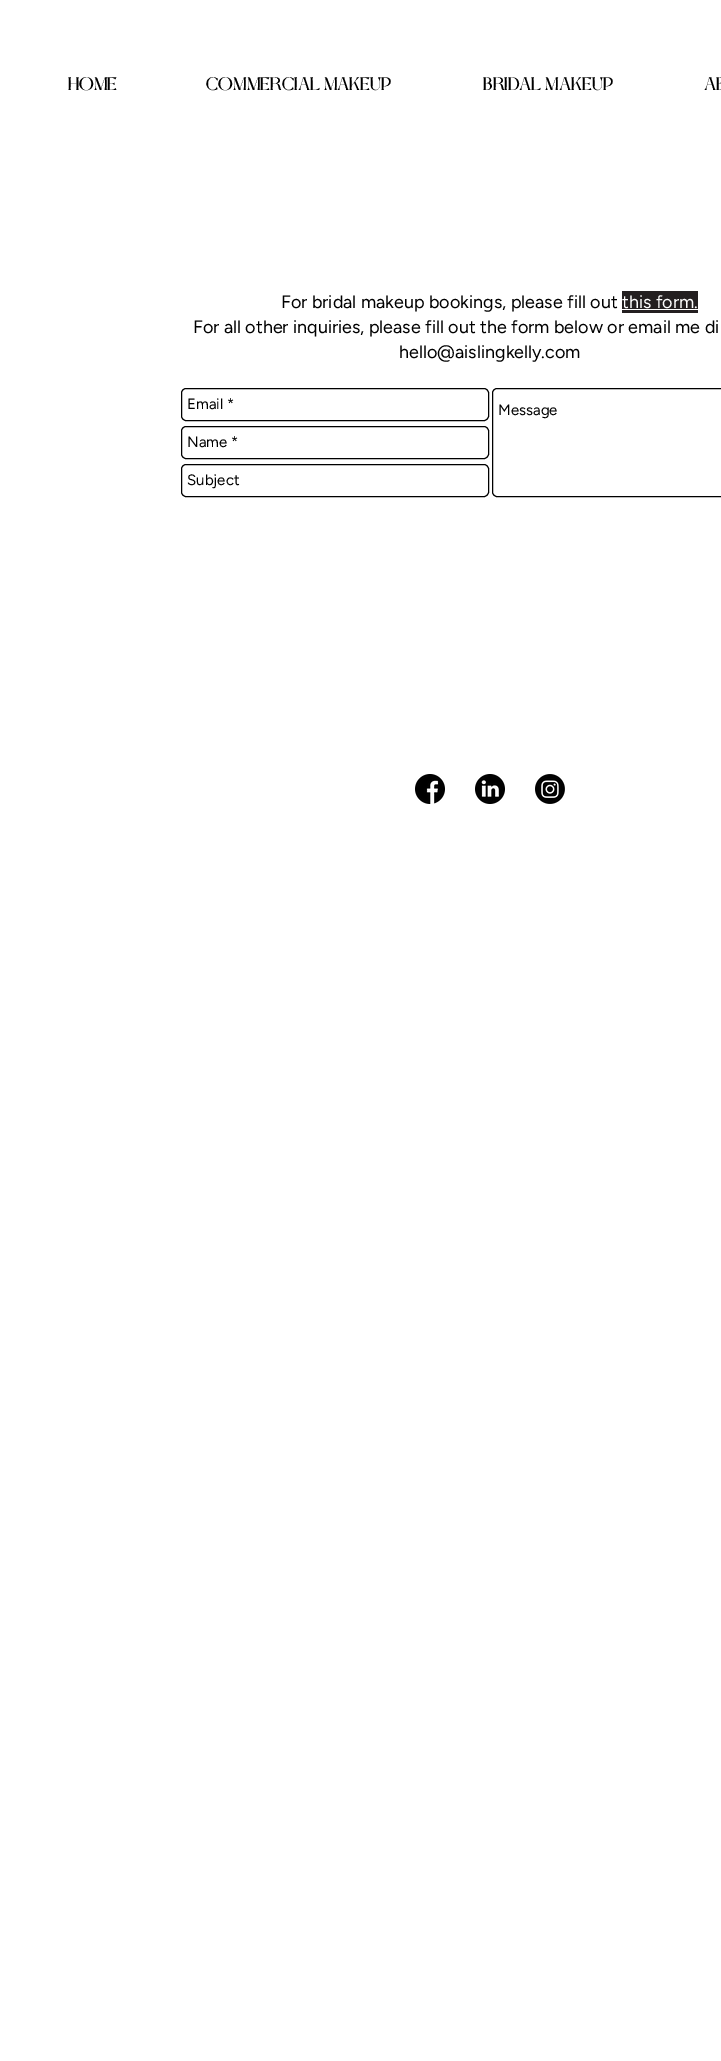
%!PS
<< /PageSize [721 2061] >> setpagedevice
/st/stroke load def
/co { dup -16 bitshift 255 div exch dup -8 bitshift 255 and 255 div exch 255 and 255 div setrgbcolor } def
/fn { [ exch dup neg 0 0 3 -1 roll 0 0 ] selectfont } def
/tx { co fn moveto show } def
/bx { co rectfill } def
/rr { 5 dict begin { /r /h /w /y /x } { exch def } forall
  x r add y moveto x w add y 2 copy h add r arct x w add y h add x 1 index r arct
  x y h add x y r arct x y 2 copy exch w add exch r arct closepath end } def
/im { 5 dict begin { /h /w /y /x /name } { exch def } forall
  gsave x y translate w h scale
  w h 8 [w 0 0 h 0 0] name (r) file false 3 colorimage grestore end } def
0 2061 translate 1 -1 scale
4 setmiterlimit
0 0 721 2061 16#FFFFFF bx
622 291 76 22 16#231F20 bx
622 309 76 1 16#FFFFFF bx
16#000000 co
181.5 388.5 307 32 4.5 rr st
492.5 388.5 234 108 4.5 rr st
181.5 426.5 307 32 4.5 rr st
181.5 464.5 307 32 4.5 rr st
(media/1.raw) 415 774 30 30 im
(media/2.raw) 475 774 30 30 im
(media/3.raw) 535 774 30 30 im
(HOME) 68 90 /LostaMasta-Light 18 16#000000 tx
(COMMERCIAL MAKEUP) 206 90 /LostaMasta-Light 18 16#000000 tx
(BRIDAL MAKEUP) 483 90 /LostaMasta-Light 18 16#000000 tx
(AB) 704 90 /LostaMasta-Light 18 16#000000 tx
(For bridal makeup bookings, please fill out) 281 308 /Figtree-Regular 18 16#000000 tx
(this form.) 622 308 /Figtree-Regular 18 16#FFFFFF tx
(For all other inquiries, please fill out the form below or email me di) 193 333 /Figtree-Regular 18 16#000000 tx
(hello@aislingkelly.com) 399 358 /Figtree-Regular 18 16#000000 tx
(Email *) 187 409 /Figtree-Regular 15 16#000000 tx
(Message) 498 415 /Figtree-Regular 15 16#000000 tx
(Name *) 187 447 /Figtree-Regular 15 16#000000 tx
(Subject) 187 485 /Figtree-Regular 15 16#000000 tx
showpage
